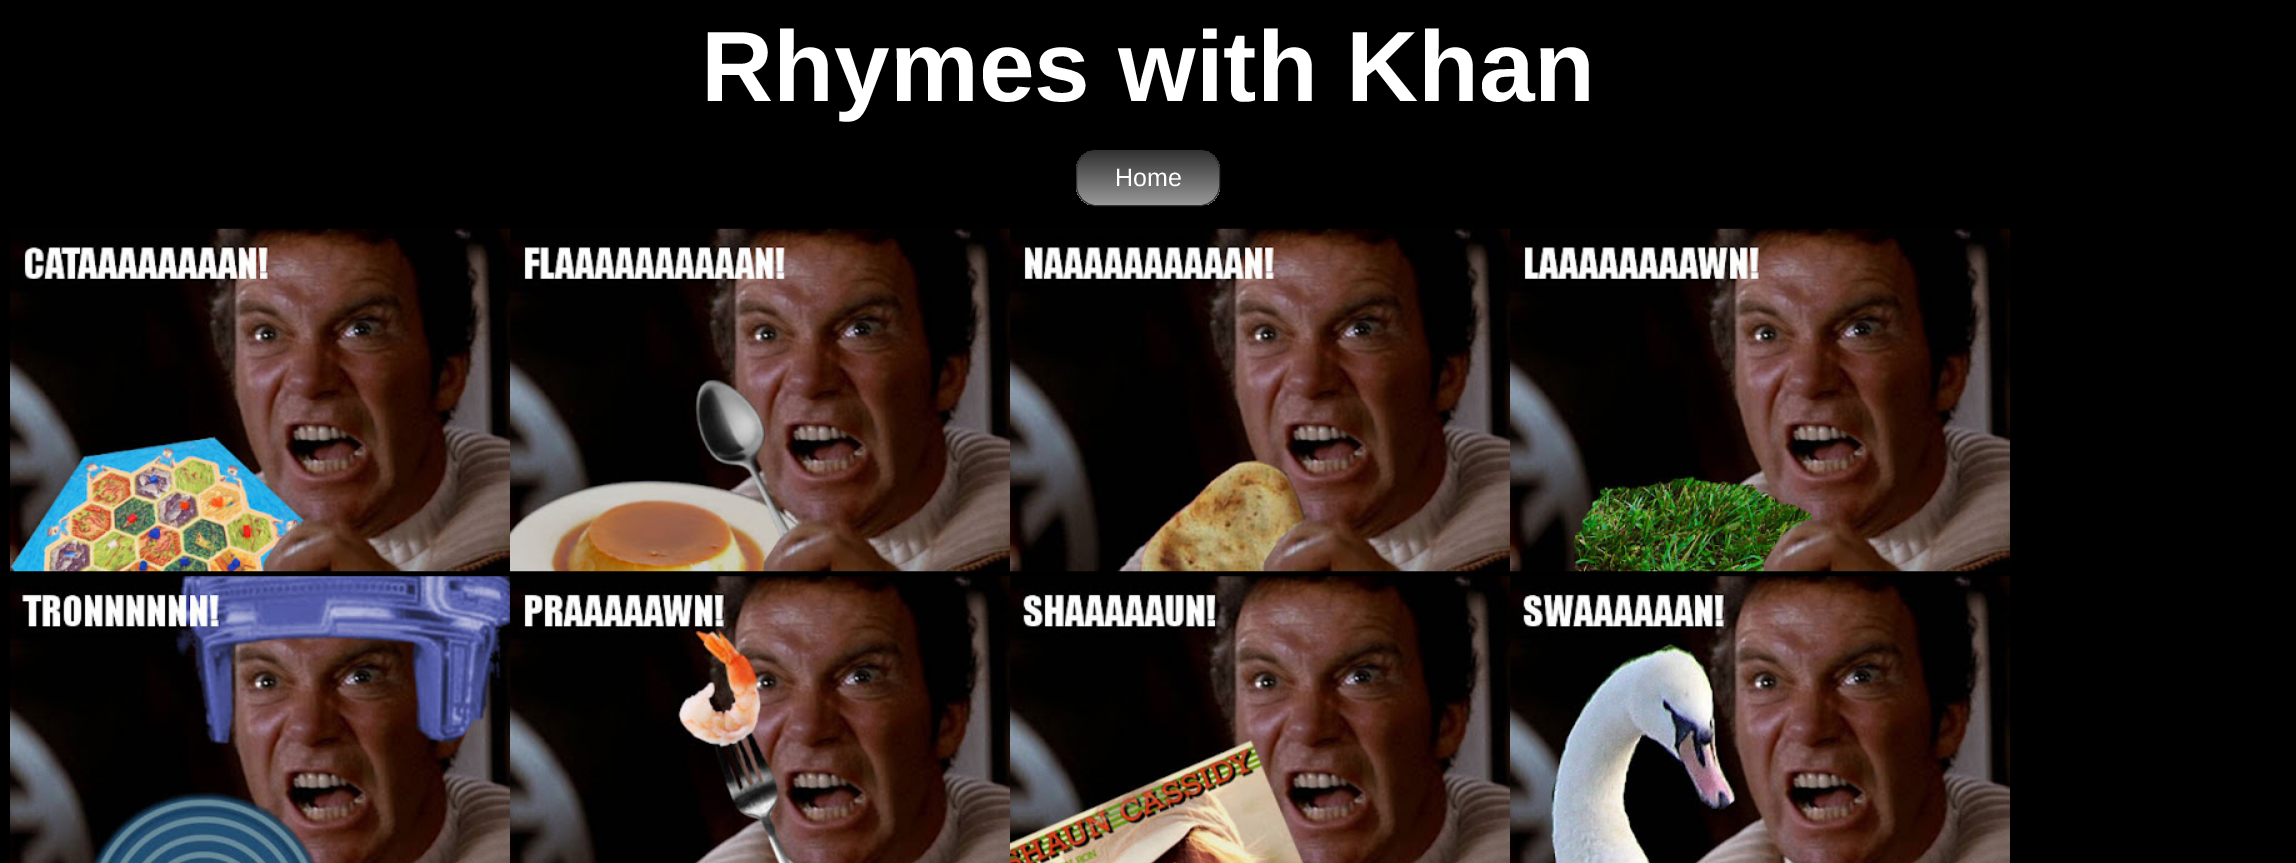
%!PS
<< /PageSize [2296 863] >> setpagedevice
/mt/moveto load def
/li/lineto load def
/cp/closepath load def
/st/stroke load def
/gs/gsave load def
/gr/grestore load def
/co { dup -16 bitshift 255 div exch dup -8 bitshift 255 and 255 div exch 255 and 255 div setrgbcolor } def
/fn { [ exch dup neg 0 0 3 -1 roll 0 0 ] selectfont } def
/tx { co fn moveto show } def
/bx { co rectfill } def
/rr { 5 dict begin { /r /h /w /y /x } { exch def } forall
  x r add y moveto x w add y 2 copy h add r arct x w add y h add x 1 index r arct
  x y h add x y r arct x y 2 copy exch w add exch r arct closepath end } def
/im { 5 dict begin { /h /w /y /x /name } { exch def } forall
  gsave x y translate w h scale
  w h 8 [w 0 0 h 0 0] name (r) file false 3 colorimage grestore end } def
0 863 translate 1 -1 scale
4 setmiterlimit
0 0 2296 863 16#000000 bx
gs
1076 150 144 56 20 rr clip newpath
gs 1076 151 mt 1220 151 li 1220 205 li 1076 205 li cp clip newpath
<< /ShadingType 2 /ColorSpace /DeviceRGB /Coords [1148 151 1148 205] /Extend [true true] /Function << /FunctionType 2 /Domain [0 1] /C0 [.2 .2 .2] /C1 [.6 .6 .6] /N 1 >> >> shfill gr
gr
16#333333 co
1076.5 150.5 143 55 19.5 rr st
(media/1.raw) 10 228 500 344 im
(media/2.raw) 510 228 500 344 im
(media/3.raw) 1010 228 500 344 im
(media/4.raw) 1510 228 500 344 im
(media/5.raw) 10 576 500 287 im
(media/6.raw) 510 576 500 287 im
(media/7.raw) 1010 576 500 287 im
(media/8.raw) 1510 576 500 287 im
(Rhymes with Khan) 701 101 /LiberationSans-Bold 100 16#FFFFFF tx
(Home) 1115 186 /LiberationSans-Regular 25 16#FFFFFF tx
showpage
